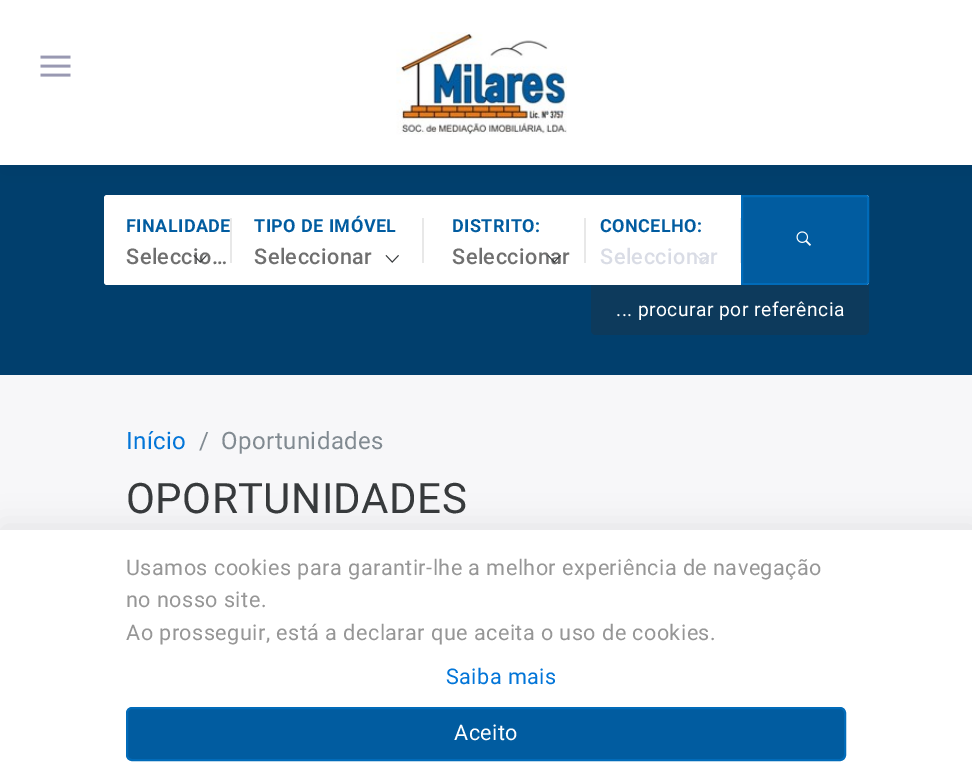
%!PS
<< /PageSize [972 783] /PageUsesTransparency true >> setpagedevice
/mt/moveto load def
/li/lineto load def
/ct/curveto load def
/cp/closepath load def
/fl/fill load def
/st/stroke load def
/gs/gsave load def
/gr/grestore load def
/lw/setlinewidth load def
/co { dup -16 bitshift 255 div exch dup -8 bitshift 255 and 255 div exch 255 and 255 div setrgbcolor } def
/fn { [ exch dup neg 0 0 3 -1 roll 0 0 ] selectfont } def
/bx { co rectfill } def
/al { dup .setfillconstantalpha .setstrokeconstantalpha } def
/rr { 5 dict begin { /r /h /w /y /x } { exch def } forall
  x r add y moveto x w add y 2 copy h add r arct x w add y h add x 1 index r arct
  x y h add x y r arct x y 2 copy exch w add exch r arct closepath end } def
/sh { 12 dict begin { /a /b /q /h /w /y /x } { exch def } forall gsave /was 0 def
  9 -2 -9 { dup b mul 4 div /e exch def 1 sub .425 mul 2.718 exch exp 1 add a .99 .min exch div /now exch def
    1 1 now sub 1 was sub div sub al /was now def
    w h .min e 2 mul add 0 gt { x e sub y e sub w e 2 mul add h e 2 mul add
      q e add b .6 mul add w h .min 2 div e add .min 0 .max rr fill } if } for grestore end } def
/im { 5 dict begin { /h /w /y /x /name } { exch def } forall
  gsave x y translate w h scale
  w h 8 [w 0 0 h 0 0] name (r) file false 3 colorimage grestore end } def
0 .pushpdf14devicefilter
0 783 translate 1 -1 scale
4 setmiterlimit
0 0 972 783 16#F7F7F9 bx
0 165 972 210 16#013F6D bx
16#FFFFFF co
104 195 765 90 3 rr fl
16#015CA0 co
742 196 mt 866 196 li 867 196 868 197 868 198 ct 868 282 li 868 283 867 284 866 284 ct 742 284 li cp gs fl gr
16#016BB9 co
2 lw
st
16#000000 co
2 0 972 165 0 15 .08 sh
0 0 972 165 16#FFFFFF bx
(media/1.raw) 40 55 31 22 im
(media/2.raw) 396 32 171 103 im
422 218 2 45 16#E8E8E8 bx
(media/4.raw) 385 255 14 8 im
584 218 2 45 16#E8E8E8 bx
740 218 1 45 16#E8E8E8 bx
(media/7.raw) 796 231 15 15 im
16#0D3A5C co
591 285 mt 869 285 li 869 330 li 869 333 867 335 864 335 ct 596 335 li 593 335 591 333 591 330 ct cp fl
16#000000 co
2 527 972 253 0 15 .08 sh
0 530 972 253 16#FFFFFF bx
16#015CA0 co
127 708 718 52 5 rr gs fl gr
16#016BB9 co
st
/Roboto-Bold 18 fn
16#015CA0 co
126 232 mt .45 0 (FINALIDADE) ashow
230 218 2 45 16#E8E8E8 bx
/Roboto-Medium 21.6 fn
16#6F6F6F co
126 264 mt .45 0 (Seleccio…) ashow
(media/3.raw) 193 255 14 8 im
/Roboto-Bold 18 fn
16#015CA0 co
254 232 mt .45 0 (TIPO DE IMÓVEL) ashow
/Roboto-Medium 21.6 fn
16#6F6F6F co
254 264 mt .45 0 (Seleccionar) ashow
/Roboto-Bold 18 fn
16#015CA0 co
452 232 mt .45 0 (DISTRITO:) ashow
/Roboto-Medium 21.6 fn
16#6F6F6F co
452 264 mt .45 0 (Seleccionar) ashow
(media/5.raw) 547 255 14 8 im
/Roboto-Bold 18 fn
16#015CA0 co
600 232 mt .45 0 (CONCELHO:) ashow
/Roboto-Medium 21.6 fn
16#D9DCE5 co
600 264 mt .45 0 (Seleccionar) ashow
(media/6.raw) 696 255 14 7 im
/Roboto-Regular 19.25 fn
16#FFFFFF co
616 316 mt .45 0 (... procurar por referência) ashow
/Roboto-Regular 24 fn
16#0275D8 co
126 449 mt .45 0 (Início) ashow
16#818A91 co
199 449 mt .45 0 (/) ashow
221 449 mt .45 0 (Oportunidades) ashow
/Roboto-Regular 42 fn
16#373A3C co
126 513 mt .45 0 (OPORTUNIDADES) ashow
/Roboto-Regular 21.6 fn
16#969696 co
126 575 mt .45 0 (Usamos cookies para garantir-lhe a melhor experiência de navegação) ashow
126 607 mt .45 0 (no nosso site.) ashow
126 640 mt .45 0 (Ao prosseguir, está a declarar que aceita o uso de cookies.) ashow
16#0275D8 co
446 684 mt .45 0 (Saiba mais) ashow
16#FFFFFF co
454 740 mt .45 0 (Aceito) ashow
.poppdf14devicefilter showpage
